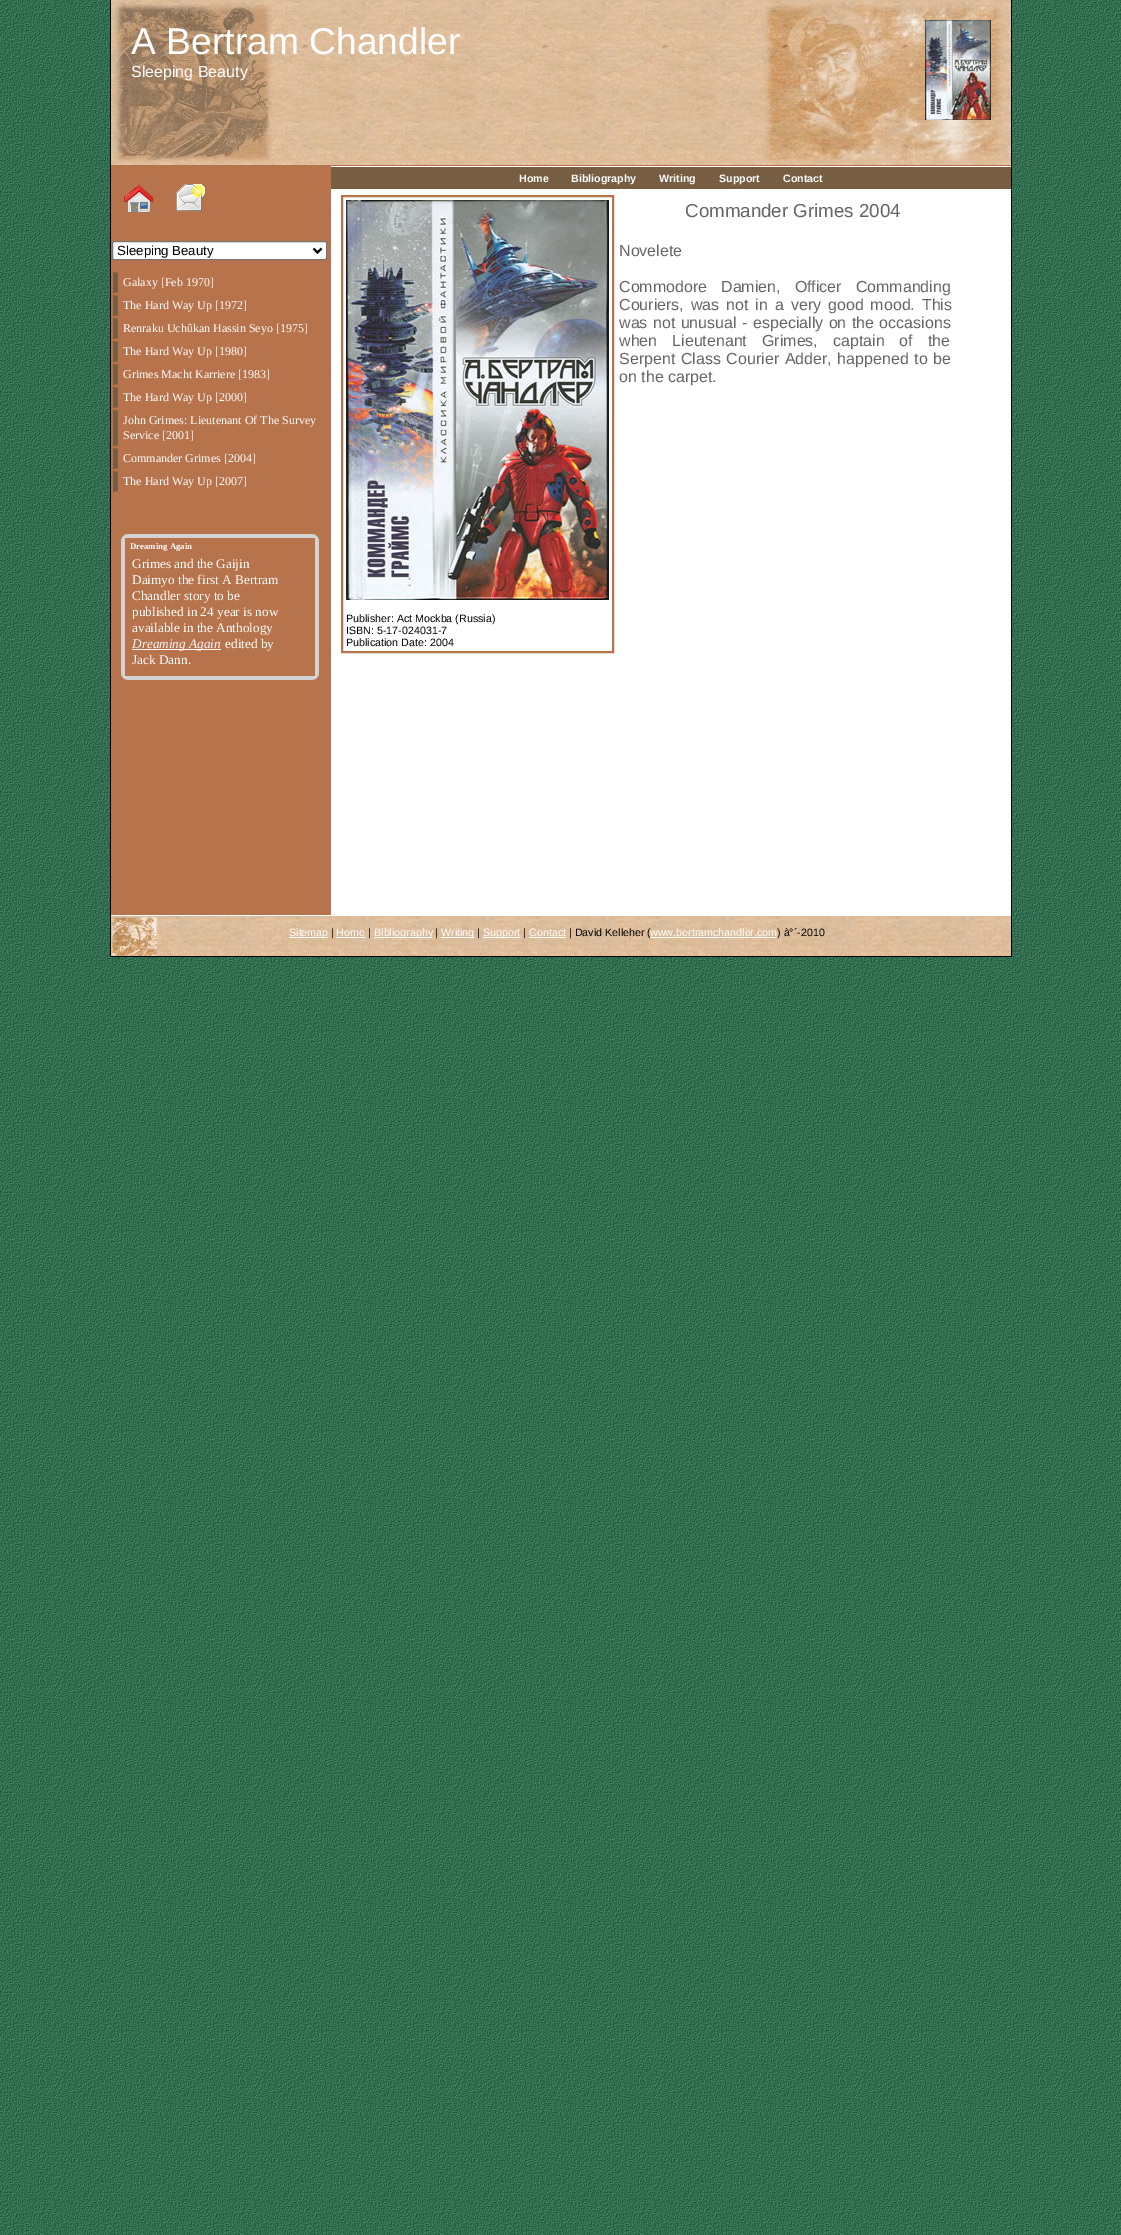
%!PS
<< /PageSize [1121 2235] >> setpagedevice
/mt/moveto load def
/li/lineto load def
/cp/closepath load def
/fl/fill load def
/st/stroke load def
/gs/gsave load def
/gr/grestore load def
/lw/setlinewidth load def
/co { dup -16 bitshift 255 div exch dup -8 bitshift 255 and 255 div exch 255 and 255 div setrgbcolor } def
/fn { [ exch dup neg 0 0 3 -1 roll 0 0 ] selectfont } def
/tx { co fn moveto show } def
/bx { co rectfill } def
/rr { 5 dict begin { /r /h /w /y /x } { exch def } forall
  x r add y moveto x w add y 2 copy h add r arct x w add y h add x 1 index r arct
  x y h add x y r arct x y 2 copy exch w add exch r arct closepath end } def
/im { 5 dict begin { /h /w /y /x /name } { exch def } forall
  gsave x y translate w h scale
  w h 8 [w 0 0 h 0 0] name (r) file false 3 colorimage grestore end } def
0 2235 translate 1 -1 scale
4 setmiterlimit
0 0 1121 2235 16#FFFFFF bx
(media/1.raw) 0 0 1121 2235 im
331 189 680 726 16#FFFFFF bx
1011 0 1 957 16#000000 bx
110 0 1 957 16#000000 bx
(media/2.raw) 111 0 900 165 im
111 165 900 1 16#B7734B bx
(media/3.raw) 925 20 66 100 im
331 167 680 22 16#775D42 bx
331 166 680 1 16#FFFFFF bx
111 166 220 749 16#B7734B bx
(media/4.raw) 124 183 31 30 im
(media/5.raw) 176 184 29 28 im
16#FFFFFF co
112.5 241.5 214 18 1.5 rr gs fl gr
16#767676 co
st
16#000000 co
2 lw
313.5 248.5 mt 317.5 252.5 li 321.5 248.5 li st
16#775D42 co
113 293 mt 113 272 li 118 273 li 118 292 li cp 113 316 mt 113 295 li 118 296 li 118 315 li cp fl
113 339 mt 113 318 li 118 319 li 118 338 li cp 113 362 mt 113 341 li 118 342 li 118 361 li cp fl
113 385 mt 113 364 li 118 365 li 118 384 li cp 113 408 mt 113 387 li 118 388 li 118 407 li cp fl
113 446 mt 113 410 li 118 411 li 118 445 li cp 113 469 mt 113 448 li 118 449 li 118 468 li cp fl
113 492 mt 113 471 li 118 472 li 118 491 li cp fl
315 541 4 132 16#D3D3D3 bx
121 541 4 132 16#D3D3D3 bx
124 534 1 1 16#BA7C58 bx
125 534 1 1 16#C6A591 bx
126 534 1 1 16#CEC2BB bx
127 534 1 1 16#D2D0CE bx
122 536 1 1 16#C09378 bx
123 535 1 1 16#C09378 bx
124 535 1 1 16#D2CECC bx
125 535 3 3 16#D3D3D3 bx
121 537 1 1 16#BA7C58 bx
122 537 1 1 16#D2CECC bx
123 536 1 1 16#D3D3D2 bx
124 536 1 5 16#D3D3D3 bx
121 538 1 1 16#C6A591 bx
122 538 1 3 16#D3D3D3 bx
123 537 1 4 16#D3D3D3 bx
121 539 1 1 16#CEC2BB bx
121 540 1 1 16#D2D0CE bx
128 534 184 4 16#D3D3D3 bx
312 534 1 1 16#D2D0CE bx
313 534 1 1 16#CEC2BB bx
314 534 1 1 16#C6A591 bx
315 534 1 1 16#BA7C58 bx
312 535 3 3 16#D3D3D3 bx
315 535 1 1 16#D2CECC bx
316 535 1 1 16#C09378 bx
315 536 1 5 16#D3D3D3 bx
316 536 1 1 16#D3D3D2 bx
317 536 1 1 16#C09378 bx
316 537 1 4 16#D3D3D3 bx
317 537 1 1 16#D2CECC bx
318 537 1 1 16#BA7C58 bx
317 538 1 3 16#D3D3D3 bx
318 538 1 1 16#C6A591 bx
318 539 1 1 16#CEC2BB bx
318 540 1 1 16#D2D0CE bx
132 649 89 1 16#F8F8FF bx
121 673 1 1 16#D2D0CE bx
122 673 1 3 16#D3D3D3 bx
123 673 1 4 16#D3D3D3 bx
124 673 1 5 16#D3D3D3 bx
121 674 1 1 16#CEC2BB bx
121 675 1 1 16#C6A591 bx
121 676 1 1 16#BA7C58 bx
122 676 1 1 16#D2CECC bx
125 676 3 3 16#D3D3D3 bx
122 677 1 1 16#C09378 bx
123 677 1 1 16#D3D3D2 bx
123 678 1 1 16#C09378 bx
124 678 1 1 16#D2CECC bx
124 679 1 1 16#BA7C58 bx
125 679 1 1 16#C6A591 bx
126 679 1 1 16#CEC2BB bx
127 679 1 1 16#D2D0CE bx
128 676 184 4 16#D3D3D3 bx
315 673 1 5 16#D3D3D3 bx
316 673 1 4 16#D3D3D3 bx
317 673 1 3 16#D3D3D3 bx
318 673 1 1 16#D2D0CE bx
318 674 1 1 16#CEC2BB bx
318 675 1 1 16#C6A591 bx
312 676 3 3 16#D3D3D3 bx
317 676 1 1 16#D2CECC bx
318 676 1 1 16#BA7C58 bx
316 677 1 1 16#D3D3D2 bx
317 677 1 1 16#C09378 bx
315 678 1 1 16#D2CECC bx
316 678 1 1 16#C09378 bx
312 679 1 1 16#D2D0CE bx
313 679 1 1 16#CEC2BB bx
314 679 1 1 16#C6A591 bx
315 679 1 1 16#BA7C58 bx
16#B7734B co
342 196 271 456 rectstroke
(media/6.raw) 346 200 263 400 im
(media/7.raw) 111 916 900 40 im
111 915 900 1 16#FFFFFF bx
111 956 900 1 16#000000 bx
289 937 39 1 16#FFFFFF bx
336 937 29 1 16#FFFFFF bx
374 937 58 1 16#FFFFFF bx
441 937 33 1 16#FFFFFF bx
483 937 37 1 16#FFFFFF bx
529 937 37 1 16#FFFFFF bx
(A Bertram Chandler) 131 54 /LiberationSans-Regular 37.25 16#FFFFFF tx
(Sleeping Beauty) 131 77 /LiberationSans-Regular 16 16#FFFFFF tx
(Home) 519 182 /LiberationSans-Bold 10.7 16#FFFFFF tx
(Bibliography) 571 182 /LiberationSans-Bold 10.7 16#FFFFFF tx
(Writing) 659 182 /LiberationSans-Bold 10.7 16#FFFFFF tx
(Support) 719 182 /LiberationSans-Bold 10.7 16#FFFFFF tx
(Contact) 783 182 /LiberationSans-Bold 10.7 16#FFFFFF tx
(Sleeping Beauty) 117 255 /LiberationSans-Regular 13.25 16#000000 tx
(Galaxy [Feb 1970]) 123 286 /LiberationSerif-Regular 12 16#FFFFFF tx
(The Hard Way Up [1972]) 123 309 /LiberationSerif-Regular 12 16#FFFFFF tx
(Renraku Uchûkan Hassin Seyo [1975]) 123 332 /LiberationSerif-Regular 12 16#FFFFFF tx
(The Hard Way Up [1980]) 123 355 /LiberationSerif-Regular 12 16#FFFFFF tx
(Grimes Macht Karriere [1983]) 123 378 /LiberationSerif-Regular 12 16#FFFFFF tx
(The Hard Way Up [2000]) 123 401 /LiberationSerif-Regular 12 16#FFFFFF tx
(John Grimes: Lieutenant Of The Survey) 123 424 /LiberationSerif-Regular 12 16#FFFFFF tx
(Service [2001]) 123 439 /LiberationSerif-Regular 12 16#FFFFFF tx
(Commander Grimes [2004]) 123 462 /LiberationSerif-Regular 12 16#FFFFFF tx
(The Hard Way Up [2007]) 123 485 /LiberationSerif-Regular 12 16#FFFFFF tx
(Dreaming Again) 130 549 /LiberationSerif-Bold 8.75 16#FFFFFF tx
(Grimes and the Gaijin) 132 568 /LiberationSerif-Regular 13.25 16#FFFFFF tx
(Daimyo the first A Bertram) 132 584 /LiberationSerif-Regular 13.25 16#FFFFFF tx
(Chandler story to be) 132 600 /LiberationSerif-Regular 13.25 16#FFFFFF tx
(published in 24 year is now) 132 616 /LiberationSerif-Regular 13.25 16#FFFFFF tx
(available in the Anthology) 132 632 /LiberationSerif-Regular 13.25 16#FFFFFF tx
(Dreaming Again) 132 648 /LiberationSerif-Italic 13.25 16#F8F8FF tx
(edited by) 225 648 /LiberationSerif-Regular 13.25 16#FFFFFF tx
(Jack Dann.) 132 664 /LiberationSerif-Regular 13.25 16#FFFFFF tx
(Commander Grimes 2004) 685 217 /LiberationSans-Regular 18.75 16#666666 tx
(Novelete) 619 256 /LiberationSans-Regular 16 16#666666 tx
619 292 mt 9.5 0 32 (Commodore Damien, Officer Commanding) widthshow
619 310 mt 2.5 0 32 (Couriers, was not in a very good mood. This) widthshow
619 328 mt 1 0 32 (was not unusual - especially on the occasions) widthshow
619 346 mt 10.5 0 32 (when Lieutenant Grimes, captain of the) widthshow
619 364 mt 1.25 0 32 (Serpent Class Courier Adder, happened to be) widthshow
(on the carpet.) 619 382 /LiberationSans-Regular 16 16#666666 tx
(Publisher: Act Mockba \(Russia\)) 346 622 /LiberationSans-Regular 10.7 16#000000 tx
(ISBN: 5-17-024031-7) 346 634 /LiberationSans-Regular 10.7 16#000000 tx
(Publication Date: 2004) 346 646 /LiberationSans-Regular 10.7 16#000000 tx
(Sitemap) 289 936 /LiberationSans-Regular 10.7 16#FFFFFF tx
(|) 331 936 /LiberationSans-Regular 10.7 16#000000 tx
(Home) 336 936 /LiberationSans-Regular 10.7 16#FFFFFF tx
(|) 368 936 /LiberationSans-Regular 10.7 16#000000 tx
(Bibliography) 374 936 /LiberationSans-Regular 10.7 16#FFFFFF tx
(|) 435 936 /LiberationSans-Regular 10.7 16#000000 tx
(Writing) 441 936 /LiberationSans-Regular 10.7 16#FFFFFF tx
(|) 477 936 /LiberationSans-Regular 10.7 16#000000 tx
(Support) 483 936 /LiberationSans-Regular 10.7 16#FFFFFF tx
(|) 523 936 /LiberationSans-Regular 10.7 16#000000 tx
(Contact) 529 936 /LiberationSans-Regular 10.7 16#FFFFFF tx
(| David Kelleher \() 569 936 /LiberationSans-Regular 10.7 16#000000 tx
(www.bertramchandler.com) 650 936 /LiberationSans-Regular 10.7 16#FFFFFF tx
650 937 127 1 16#FFFFFF bx
(\) à°´-2010) 777 936 /LiberationSans-Regular 10.7 16#000000 tx
showpage
